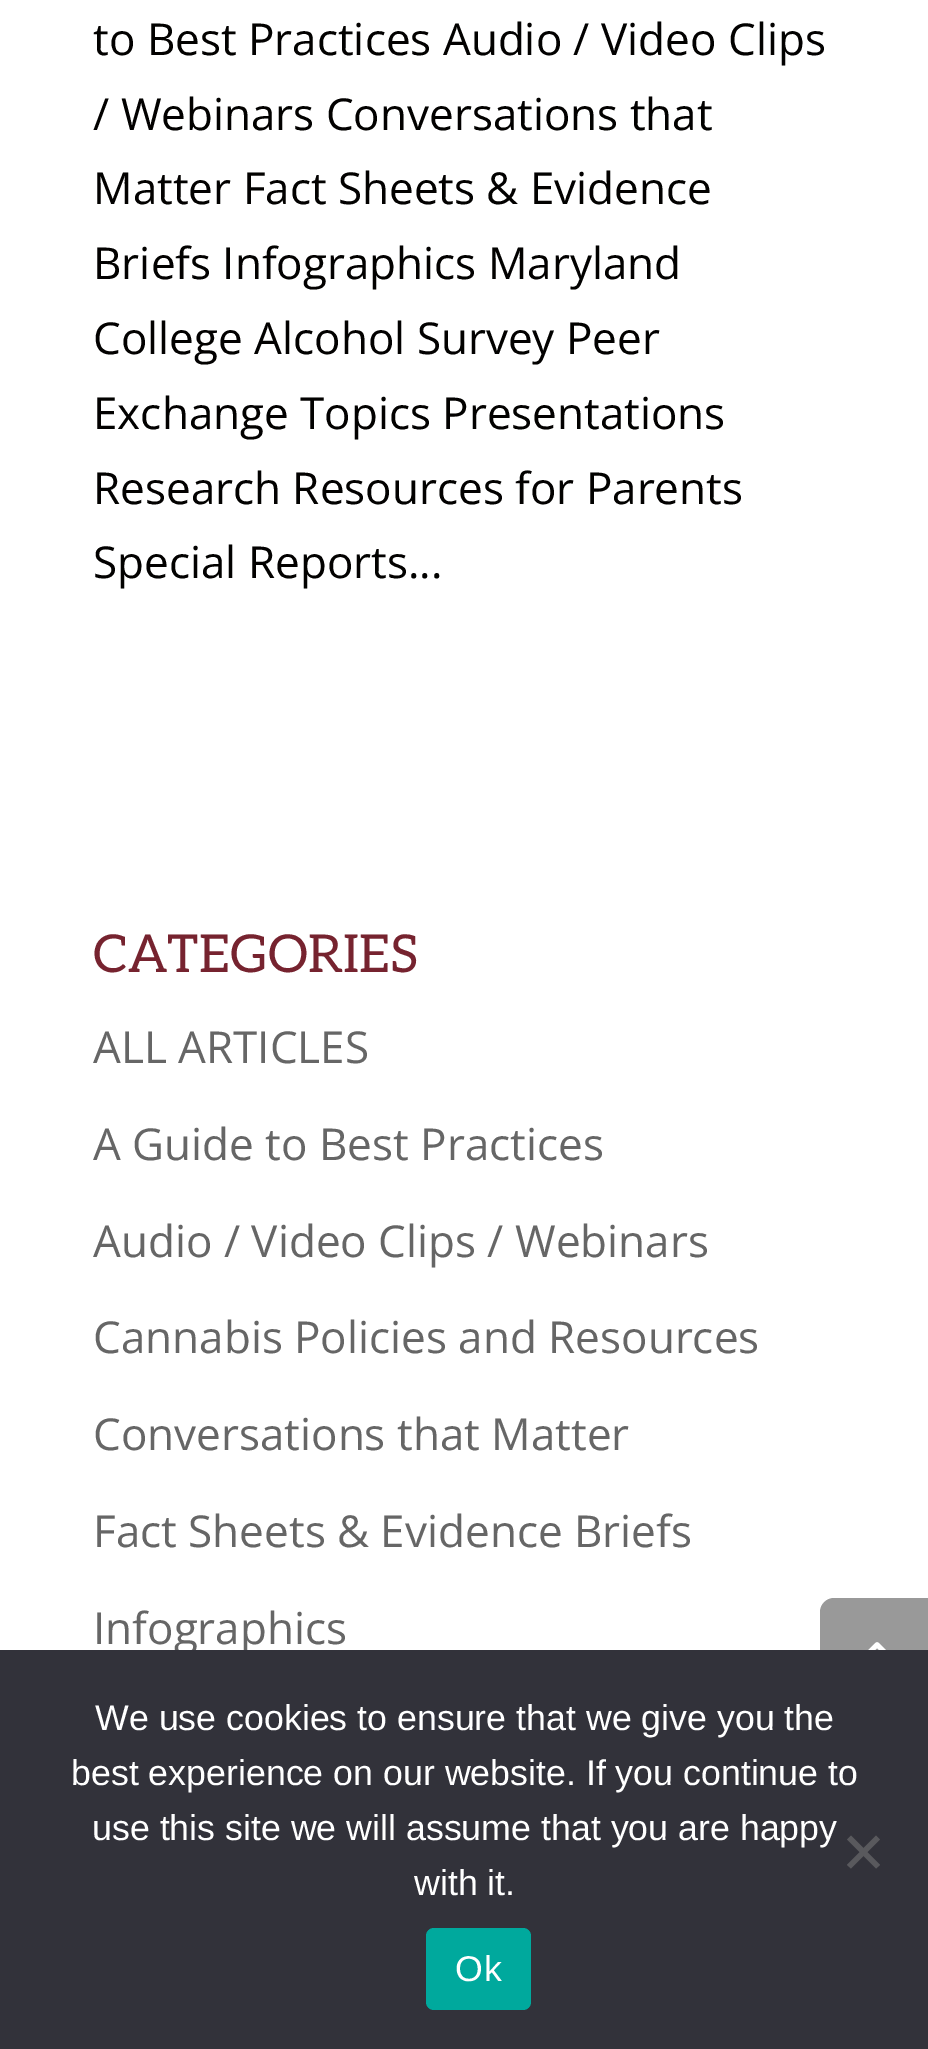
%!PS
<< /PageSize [928 2049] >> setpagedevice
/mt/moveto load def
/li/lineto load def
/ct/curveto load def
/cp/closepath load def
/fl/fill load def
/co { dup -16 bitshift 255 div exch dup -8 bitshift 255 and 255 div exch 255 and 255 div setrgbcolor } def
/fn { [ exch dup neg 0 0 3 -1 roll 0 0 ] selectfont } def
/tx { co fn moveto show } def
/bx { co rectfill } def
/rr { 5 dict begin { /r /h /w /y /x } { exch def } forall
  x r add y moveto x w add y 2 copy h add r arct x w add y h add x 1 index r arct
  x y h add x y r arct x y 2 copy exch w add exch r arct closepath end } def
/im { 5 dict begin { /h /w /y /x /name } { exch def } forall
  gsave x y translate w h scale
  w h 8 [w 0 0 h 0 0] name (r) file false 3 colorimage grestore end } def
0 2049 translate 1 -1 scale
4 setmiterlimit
0 0 928 2049 16#FFFFFF bx
16#999999 co
834 1598 mt 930 1598 li 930 1708 li 834 1708 li 826.5 1708 820 1701.5 820 1694 ct 820 1612 li 820 1604.5 826.5 1598 834 1598 ct cp fl
(media/1.raw) 868 1642 18 8 im
(to Best Practices Audio / Video Clips) 93 55 /OpenSans-Regular 44 16#020100 tx
(/ Webinars Conversations that) 93 130 /OpenSans-Regular 44 16#020100 tx
(Matter Fact Sheets & Evidence) 93 204 /OpenSans-Regular 44 16#020100 tx
(Briefs Infographics Maryland) 93 279 /OpenSans-Regular 44 16#020100 tx
(College Alcohol Survey Peer) 93 354 /OpenSans-Regular 44 16#020100 tx
(Exchange Topics Presentations) 93 429 /OpenSans-Regular 44 16#020100 tx
(Research Resources for Parents) 93 504 /OpenSans-Regular 44 16#020100 tx
(Special Reports...) 93 578 /OpenSans-Regular 44 16#020100 tx
(CATEGORIES) 93 972 /Aleo-Regular 52.25 16#76232F tx
(ALL ARTICLES) 93 1063 /OpenSans-Regular 44 16#666666 tx
(A Guide to Best Practices) 93 1160 /OpenSans-Regular 44 16#666666 tx
(Audio / Video Clips / Webinars) 93 1257 /OpenSans-Regular 44 16#666666 tx
(Cannabis Policies and Resources) 93 1353 /OpenSans-Regular 44 16#666666 tx
(Conversations that Matter) 93 1450 /OpenSans-Regular 44 16#666666 tx
(Fact Sheets & Evidence Briefs) 93 1547 /OpenSans-Regular 44 16#666666 tx
(Infographics) 93 1644 /OpenSans-Regular 44 16#666666 tx
0 1650 928 399 16#32323A bx
(We use cookies to ensure that we give you the) 95 1730 /LiberationSans-Regular 35.75 16#FFFFFF tx
(best experience on our website. If you continue to) 71 1785 /LiberationSans-Regular 35.75 16#FFFFFF tx
(use this site we will assume that you are happy) 92 1840 /LiberationSans-Regular 35.75 16#FFFFFF tx
(with it.) 414 1895 /LiberationSans-Regular 35.75 16#FFFFFF tx
16#59595D co
876 1835.5 mt 880 1839.5 li 851 1868.5 li 847 1865 li cp fl
847 1839.5 mt 851 1835.5 li 880 1865 li 876 1868.5 li cp fl
16#00A99D co
426 1928 105 82 8 rr fl
16#FFFFFF co
455 1981 mt 1 0 (Ok) ashow
showpage
